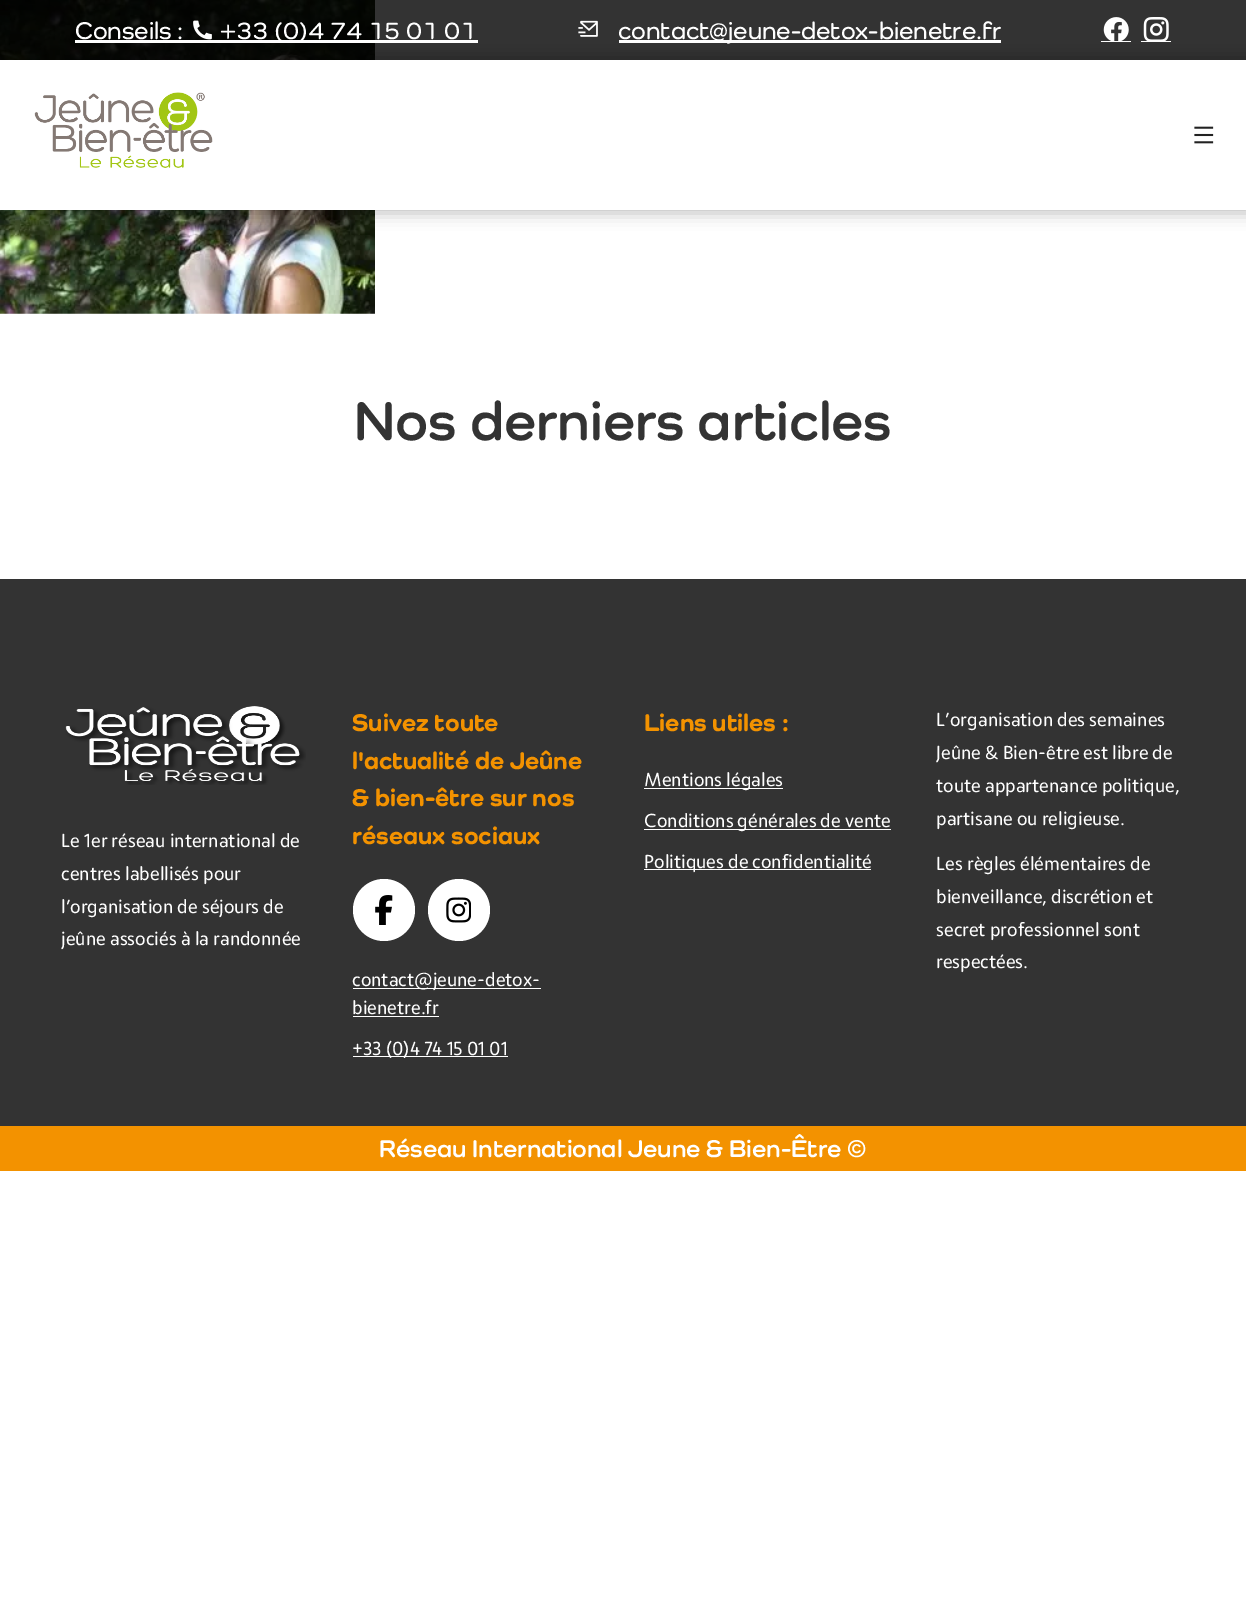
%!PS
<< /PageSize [1246 1600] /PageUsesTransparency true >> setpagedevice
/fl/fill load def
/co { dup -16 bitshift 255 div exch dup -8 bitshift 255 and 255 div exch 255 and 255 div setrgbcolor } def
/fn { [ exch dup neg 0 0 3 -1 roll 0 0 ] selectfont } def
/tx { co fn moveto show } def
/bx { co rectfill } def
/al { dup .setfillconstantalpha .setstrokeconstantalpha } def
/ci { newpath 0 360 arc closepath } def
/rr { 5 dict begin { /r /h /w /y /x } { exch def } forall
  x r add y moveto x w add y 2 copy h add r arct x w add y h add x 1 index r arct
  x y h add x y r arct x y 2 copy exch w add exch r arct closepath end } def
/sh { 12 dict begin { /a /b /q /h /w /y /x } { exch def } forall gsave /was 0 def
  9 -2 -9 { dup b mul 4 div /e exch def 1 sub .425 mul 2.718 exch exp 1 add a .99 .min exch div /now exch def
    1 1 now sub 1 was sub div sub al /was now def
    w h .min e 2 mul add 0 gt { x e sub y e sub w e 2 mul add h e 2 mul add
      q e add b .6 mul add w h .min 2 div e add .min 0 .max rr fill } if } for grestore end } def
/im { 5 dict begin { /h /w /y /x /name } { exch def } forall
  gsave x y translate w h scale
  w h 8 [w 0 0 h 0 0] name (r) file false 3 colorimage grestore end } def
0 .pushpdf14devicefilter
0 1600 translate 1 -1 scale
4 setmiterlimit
0 0 1246 1600 16#FFFFFF bx
(media/7.raw) 0 0 375 314 im
0.8 al
0 0 1246 60 16#000000 bx
1 al
(media/1.raw) 193 20 19 20 im
75 40 403 3 16#FFFFFF bx
(media/2.raw) 578 20 20 17 im
619 40 382 3 16#FFFFFF bx
(media/3.raw) 1103 17 26 24 im
1101 41 30 1 16#FFFFFF bx
(media/4.raw) 1143 17 26 24 im
1141 41 30 1 16#FFFFFF bx
16#000000 co
-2 58 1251 155 0 8 .25 sh
0 60 1246 150 16#FFFFFF bx
(media/5.raw) 34 92 179 76 im
(media/6.raw) 1194 126 20 18 im
0 579 1246 547 16#333333 bx
16#FFFFFF co
384 910 31 ci fl
(media/8.raw) 375 895 18 30 im
459 910 31 ci fl
(media/9.raw) 446 897 25 26 im
353 988 188 1 16#FFFFFF bx
353 1016 86 1 16#FFFFFF bx
353 1056 155 1 16#FFFFFF bx
644 788 139 1 16#FFFFFF bx
644 829 247 1 16#FFFFFF bx
644 869 227 1 16#FFFFFF bx
(media/10.raw) 65 706 241 79 im
0 1126 1246 45 16#F39200 bx
(Conseils :) 75 39 /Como-SemiBold 25 16#FFFFFF tx
(+33 \(0\)4 74 15 01 01) 220 39 /Como-SemiBold 25 16#FFFFFF tx
(contact@jeune-detox-bienetre.fr) 618 39 /Como-SemiBold 25 16#FFFFFF tx
(Nos derniers articles) 354 440 /Como-Bold 56.25 16#333333 tx
(Suivez toute) 352 731 /Como-ExtraBold 25 16#F39200 tx
(l'actualité de Jeûne) 352 769 /Como-ExtraBold 25 16#F39200 tx
(& bien-être sur nos) 352 806 /Como-ExtraBold 25 16#F39200 tx
(réseaux sociaux) 352 844 /Como-ExtraBold 25 16#F39200 tx
(contact@jeune-detox-) 352 986 /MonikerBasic-Regular 18.75 16#FFFFFF tx
(bienetre.fr) 352 1014 /MonikerBasic-Regular 18.75 16#FFFFFF tx
(+33 \(0\)4 74 15 01 01) 352 1055 /MonikerBasic-Regular 18.75 16#FFFFFF tx
(Liens utiles :) 644 731 /Como-ExtraBold 25 16#F39200 tx
(Mentions légales) 644 786 /MonikerBasic-Regular 18.75 16#FFFFFF tx
(Conditions générales de vente) 644 827 /MonikerBasic-Regular 18.75 16#FFFFFF tx
(Politiques de confidentialité) 644 868 /MonikerBasic-Regular 18.75 16#FFFFFF tx
(L’organisation des semaines) 936 726 /MonikerBasic-Regular 18.75 16#FFFFFF tx
(Jeûne & Bien-être est libre de) 936 759 /MonikerBasic-Regular 18.75 16#FFFFFF tx
(toute appartenance politique,) 936 792 /MonikerBasic-Regular 18.75 16#FFFFFF tx
(partisane ou religieuse.) 936 825 /MonikerBasic-Regular 18.75 16#FFFFFF tx
(Les règles élémentaires de) 936 870 /MonikerBasic-Regular 18.75 16#FFFFFF tx
(bienveillance, discrétion et) 936 903 /MonikerBasic-Regular 18.75 16#FFFFFF tx
(secret professionnel sont) 936 936 /MonikerBasic-Regular 18.75 16#FFFFFF tx
(respectées.) 936 968 /MonikerBasic-Regular 18.75 16#FFFFFF tx
(Le 1er réseau international de) 61 847 /MonikerBasic-Regular 18.75 16#FFFFFF tx
(centres labellisés pour) 61 880 /MonikerBasic-Regular 18.75 16#FFFFFF tx
(l’organisation de séjours de) 61 913 /MonikerBasic-Regular 18.75 16#FFFFFF tx
(jeûne associés à la randonnée) 61 945 /MonikerBasic-Regular 18.75 16#FFFFFF tx
(Réseau International Jeune & Bien-Être ©) 379 1157 /Como-Bold 25 16#FFFFFF tx
.poppdf14devicefilter showpage
